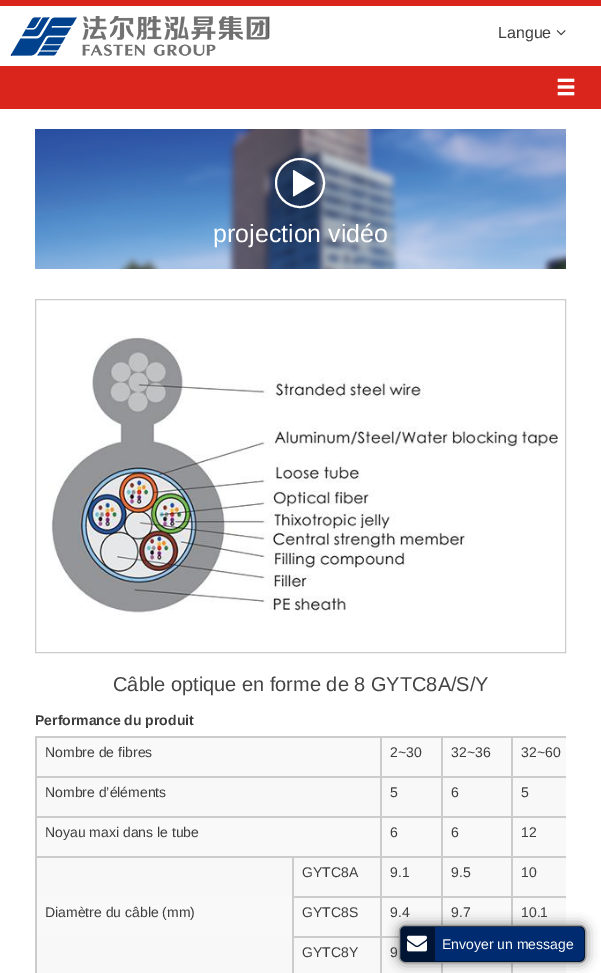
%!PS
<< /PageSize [601 973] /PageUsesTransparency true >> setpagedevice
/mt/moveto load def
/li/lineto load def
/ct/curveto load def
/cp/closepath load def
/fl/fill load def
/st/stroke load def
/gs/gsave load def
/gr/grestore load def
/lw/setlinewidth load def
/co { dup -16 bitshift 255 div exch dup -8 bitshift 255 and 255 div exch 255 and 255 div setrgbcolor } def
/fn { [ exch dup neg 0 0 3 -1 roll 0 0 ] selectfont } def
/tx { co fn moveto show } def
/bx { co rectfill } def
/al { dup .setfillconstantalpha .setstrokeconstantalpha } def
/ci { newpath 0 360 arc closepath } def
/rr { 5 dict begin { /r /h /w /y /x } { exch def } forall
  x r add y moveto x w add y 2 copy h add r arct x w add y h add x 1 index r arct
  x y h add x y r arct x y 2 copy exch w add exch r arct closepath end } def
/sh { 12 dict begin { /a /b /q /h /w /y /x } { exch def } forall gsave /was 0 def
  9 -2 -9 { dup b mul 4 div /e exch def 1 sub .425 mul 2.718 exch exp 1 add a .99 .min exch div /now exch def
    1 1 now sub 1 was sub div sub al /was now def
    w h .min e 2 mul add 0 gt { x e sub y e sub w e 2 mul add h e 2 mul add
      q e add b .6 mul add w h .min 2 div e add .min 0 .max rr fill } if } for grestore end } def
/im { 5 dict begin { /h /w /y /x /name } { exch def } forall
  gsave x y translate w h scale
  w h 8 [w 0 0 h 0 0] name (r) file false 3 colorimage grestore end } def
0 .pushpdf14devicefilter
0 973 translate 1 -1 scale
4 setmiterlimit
0 0 601 973 16#FFFFFF bx
0 0 601 6 16#DA251C bx
(media/1.raw) 10 16 260 40 im
(media/2.raw) 556 30 10 6 im
0 66 601 43 16#DA251C bx
(media/3.raw) 557 78 18 18 im
(media/4.raw) 35 129 531 140 im
16#FFFFFF co
2 lw
300 183 24 ci st
(media/5.raw) 293 170 22 27 im
16#CCCCCC co
1 lw
35.5 299.5 530 353 rectstroke
(media/6.raw) 50 336 508 280 im
35 736 531 2 16#CCCCCC bx
35 736 2 237 16#CCCCCC bx
37 738 529 38 16#F9F9F9 bx
511 776 55 2 16#CCCCCC bx
37 778 529 38 16#F8F8F8 bx
511 816 55 2 16#CCCCCC bx
37 818 529 38 16#F9F9F9 bx
511 856 55 2 16#CCCCCC bx
37 858 529 39 16#F8F8F8 bx
37 897 529 40 16#F9F9F9 bx
511 896 55 2 16#CCCCCC bx
511 896 2 29 16#CCCCCC bx
441 896 72 2 16#CCCCCC bx
511 856 2 42 16#CCCCCC bx
441 856 72 2 16#CCCCCC bx
511 816 2 42 16#CCCCCC bx
441 816 72 2 16#CCCCCC bx
511 776 2 42 16#CCCCCC bx
441 776 72 2 16#CCCCCC bx
441 896 2 29 16#CCCCCC bx
380 896 63 2 16#CCCCCC bx
441 856 2 42 16#CCCCCC bx
380 856 63 2 16#CCCCCC bx
441 816 2 42 16#CCCCCC bx
380 816 63 2 16#CCCCCC bx
441 776 2 42 16#CCCCCC bx
380 776 63 2 16#CCCCCC bx
37 937 529 36 16#F8F8F8 bx
380 936 19 2 16#CCCCCC bx
380 936 2 37 16#CCCCCC bx
292 936 90 2 16#CCCCCC bx
380 896 2 42 16#CCCCCC bx
292 896 90 2 16#CCCCCC bx
380 856 2 42 16#CCCCCC bx
292 856 90 2 16#CCCCCC bx
380 816 2 42 16#CCCCCC bx
35 816 347 2 16#CCCCCC bx
380 776 2 42 16#CCCCCC bx
35 776 347 2 16#CCCCCC bx
380 736 2 42 16#CCCCCC bx
441 736 2 42 16#CCCCCC bx
511 736 2 42 16#CCCCCC bx
292 936 2 37 16#CCCCCC bx
292 896 2 42 16#CCCCCC bx
292 856 2 42 16#CCCCCC bx
35 856 259 2 16#CCCCCC bx
441 963 2 10 16#CCCCCC bx
511 963 2 10 16#CCCCCC bx
16#000000 co
399 925 187 38 6 6 .5 sh
16#001434 co
399.5 925.5 186 37 5.5 rr gs fl gr
16#999999 co
st
(media/7.raw) 407 935 20 17 im
16#002B70 co
435 927 mt 578 927 li 581.5 927 584 929.5 584 933 ct 584 955 li 584 958.5 581.5 961 578 961 ct 435 961 li cp fl
(Langue) 498 38 /LiberationSans-Regular 16 16#3D3D3D tx
(projection vidéo) 213 242 /LiberationSans-Regular 25 16#FFFFFF tx
(Câble optique en forme de 8 GYTC8A/S/Y) 113 691 /LiberationSans-Regular 20 16#444444 tx
(Performance du produit) 35 725 /LiberationSans-Bold 14 16#3D3D3D tx
(Nombre de fibres) 45 757 /LiberationSans-Regular 14 16#3D3D3D tx
(2~30) 390 757 /LiberationSans-Regular 14 16#3D3D3D tx
(32~36) 451 757 /LiberationSans-Regular 14 16#3D3D3D tx
(32~60) 521 757 /LiberationSans-Regular 14 16#3D3D3D tx
(Nombre d’éléments) 45 797 /LiberationSans-Regular 14 16#3D3D3D tx
(5) 390 797 /LiberationSans-Regular 14 16#3D3D3D tx
(6) 451 797 /LiberationSans-Regular 14 16#3D3D3D tx
(5) 521 797 /LiberationSans-Regular 14 16#3D3D3D tx
(Noyau maxi dans le tube) 45 837 /LiberationSans-Regular 14 16#3D3D3D tx
(6) 390 837 /LiberationSans-Regular 14 16#3D3D3D tx
(6) 451 837 /LiberationSans-Regular 14 16#3D3D3D tx
(12) 521 837 /LiberationSans-Regular 14 16#3D3D3D tx
(GYTC8A) 302 877 /LiberationSans-Regular 14 16#3D3D3D tx
(9.1) 390 877 /LiberationSans-Regular 14 16#3D3D3D tx
(9.5) 451 877 /LiberationSans-Regular 14 16#3D3D3D tx
(10) 521 877 /LiberationSans-Regular 14 16#3D3D3D tx
(Diamètre du câble \(mm\)) 45 917 /LiberationSans-Regular 14 16#3D3D3D tx
(GYTC8S) 302 917 /LiberationSans-Regular 14 16#3D3D3D tx
(9.4) 390 917 /LiberationSans-Regular 14 16#3D3D3D tx
(9.7) 451 917 /LiberationSans-Regular 14 16#3D3D3D tx
(10.1) 521 917 /LiberationSans-Regular 14 16#3D3D3D tx
(GYTC8Y) 302 957 /LiberationSans-Regular 14 16#3D3D3D tx
(9) 390 957 /LiberationSans-Regular 14 16#3D3D3D tx
(Envoyer un message) 442 949 /LiberationSans-Regular 14 16#FFFFFF tx
.poppdf14devicefilter showpage
